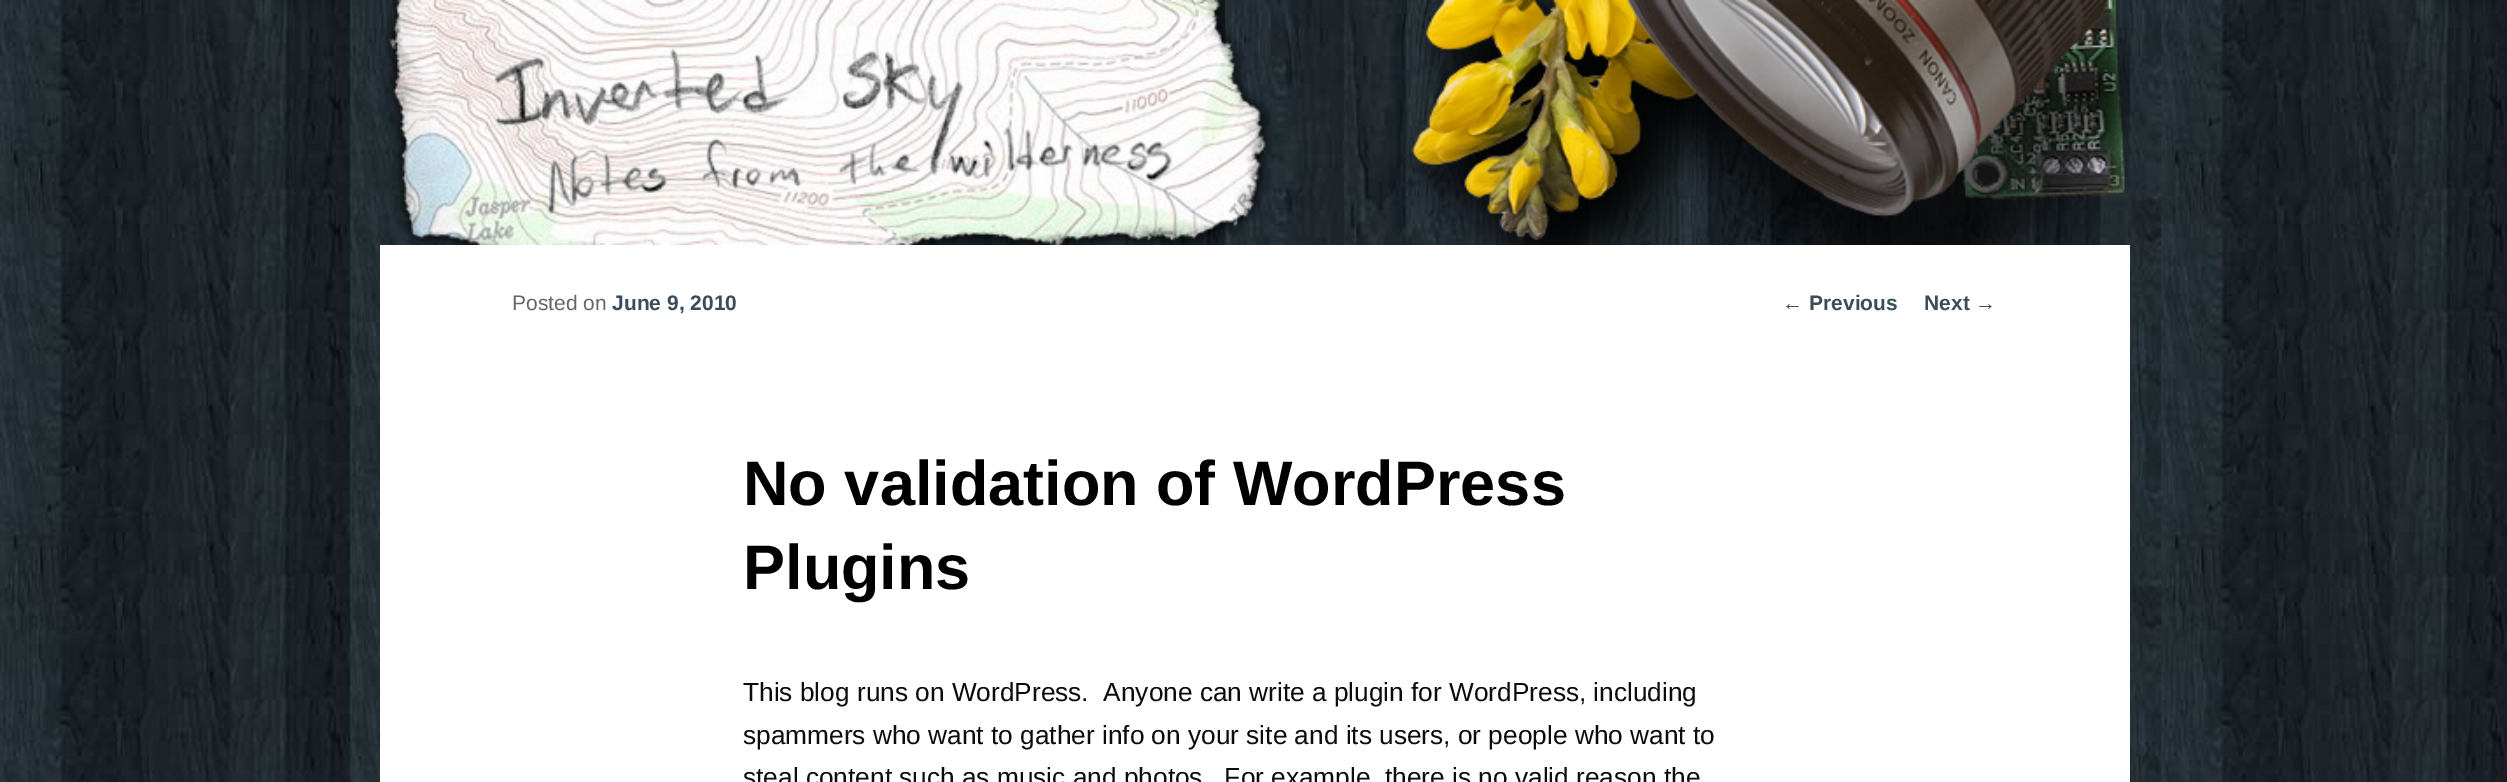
%!PS
<< /PageSize [2507 782] >> setpagedevice
/co { dup -16 bitshift 255 div exch dup -8 bitshift 255 and 255 div exch 255 and 255 div setrgbcolor } def
/fn { [ exch dup neg 0 0 3 -1 roll 0 0 ] selectfont } def
/tx { co fn moveto show } def
/bx { co rectfill } def
/im { 5 dict begin { /h /w /y /x /name } { exch def } forall
  gsave x y translate w h scale
  w h 8 [w 0 0 h 0 0] name (r) file false 3 colorimage grestore end } def
0 782 translate 1 -1 scale
4 setmiterlimit
0 0 2507 782 16#FFFFFF bx
(media/1.raw) 0 0 2507 782 im
(media/2.raw) 381 0 1749 245 im
380 245 1750 537 16#FFFFFF bx
(Posted on) 512 310 /LiberationSans-Regular 21 16#666666 tx
(June 9, 2010) 612 310 /LiberationSans-Bold 21 16#3C4C5A tx
(No validation of WordPress) 743 505 /LiberationSans-Bold 63 16#000000 tx
(Plugins) 743 589 /LiberationSans-Bold 63 16#000000 tx
(This blog runs on WordPress.  Anyone can write a plugin for WordPress, including) 743 701 /LiberationSans-Regular 26.25 16#0C0C0C tx
(spammers who want to gather info on your site and its users, or people who want to) 743 744 /LiberationSans-Regular 26.25 16#0C0C0C tx
(steal content such as music and photos.  For example, there is no valid reason the) 743 786 /LiberationSans-Regular 26.25 16#0C0C0C tx
(←) 1782 310 /LiberationSans-Regular 21 16#3C4C5A tx
(Previous) 1809 310 /LiberationSans-Bold 21 16#3C4C5A tx
(Next) 1924 310 /LiberationSans-Bold 21 16#3C4C5A tx
(→) 1975 310 /LiberationSans-Regular 21 16#3C4C5A tx
showpage
